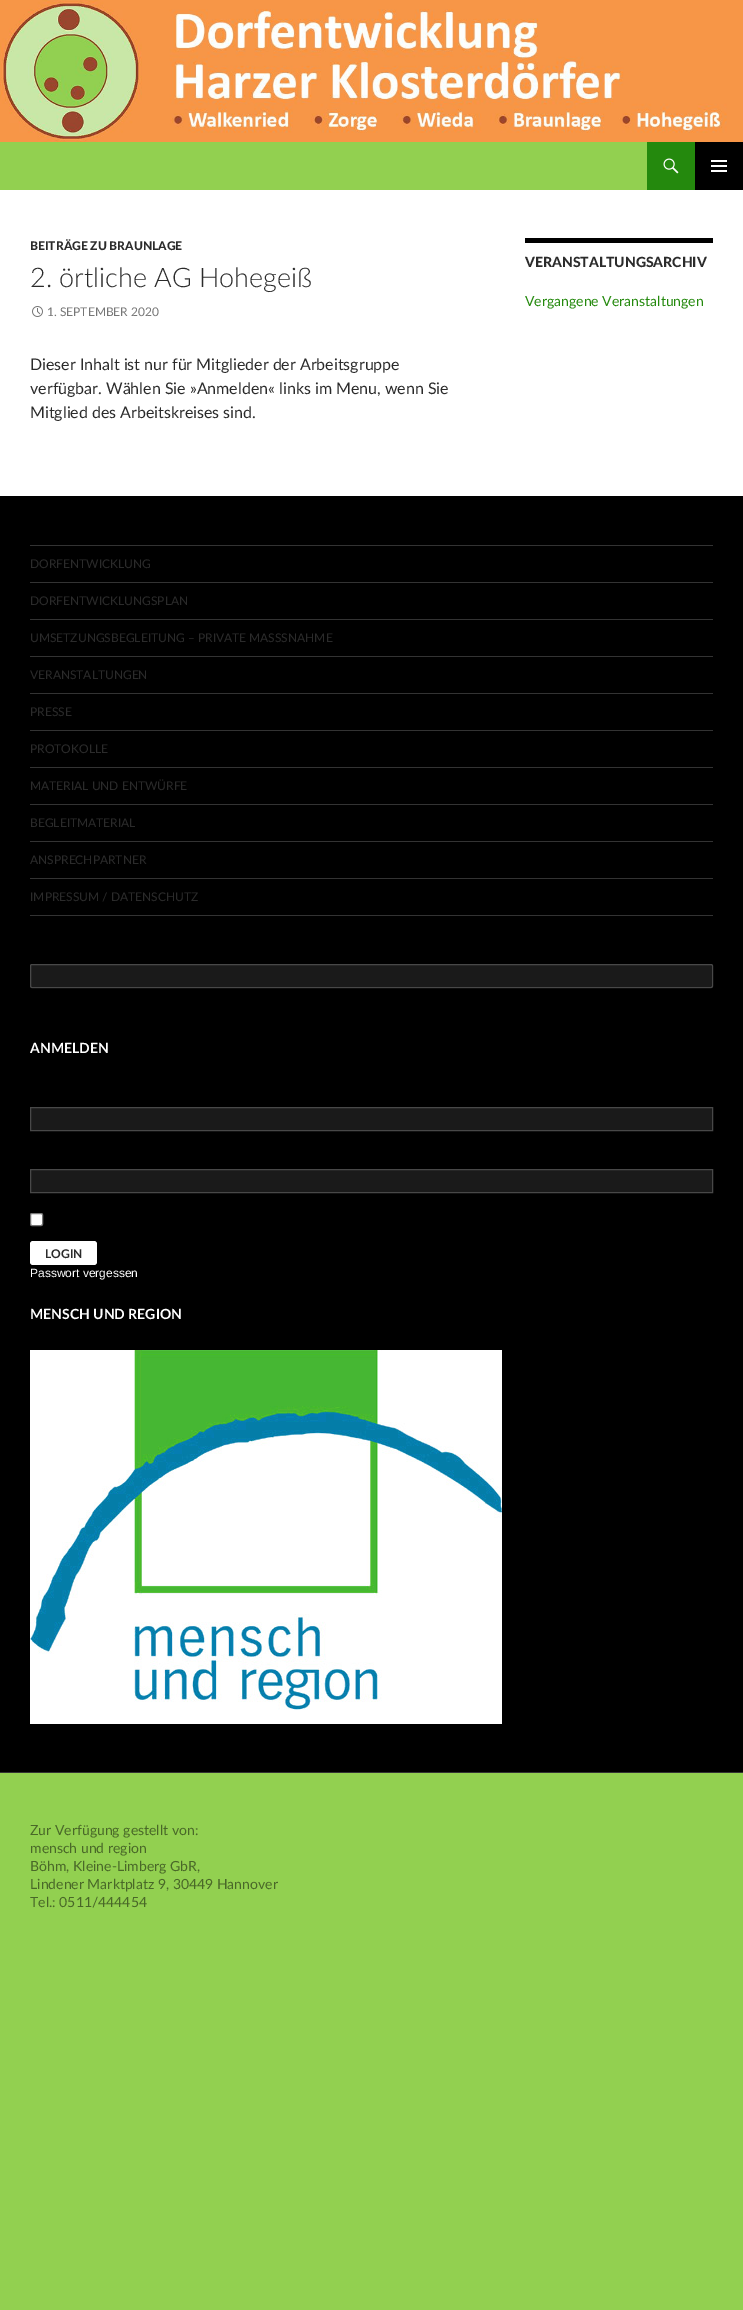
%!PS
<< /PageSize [743 2310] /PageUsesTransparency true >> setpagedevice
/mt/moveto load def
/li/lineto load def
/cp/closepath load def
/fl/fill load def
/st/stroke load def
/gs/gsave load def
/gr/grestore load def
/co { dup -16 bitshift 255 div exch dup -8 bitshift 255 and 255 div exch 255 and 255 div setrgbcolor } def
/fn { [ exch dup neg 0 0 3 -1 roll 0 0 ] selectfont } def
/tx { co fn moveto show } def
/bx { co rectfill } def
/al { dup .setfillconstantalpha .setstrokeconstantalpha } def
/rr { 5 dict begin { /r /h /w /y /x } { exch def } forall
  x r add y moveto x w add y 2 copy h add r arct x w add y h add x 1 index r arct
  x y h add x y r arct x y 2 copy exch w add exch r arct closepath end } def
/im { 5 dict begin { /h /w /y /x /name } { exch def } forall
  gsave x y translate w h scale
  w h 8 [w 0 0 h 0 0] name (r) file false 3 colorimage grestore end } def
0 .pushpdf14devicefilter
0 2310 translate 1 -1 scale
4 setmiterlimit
0 0 743 2310 16#92D050 bx
0 190 743 306 16#FFFFFF bx
(media/1.raw) 0 0 743 142 im
647 142 48 48 16#24890D bx
(media/2.raw) 663 158 16 16 im
695 142 48 48 16#000000 bx
(media/3.raw) 711 160 16 12 im
(media/4.raw) 32 306 11 11 im
525 238 188 5 16#000000 bx
0 496 743 1276 16#000000 bx
0 1772 743 1 16#333333 bx
30 915 683 1 16#333333 bx
30 545 683 1 16#333333 bx
30 582 683 1 16#333333 bx
30 619 683 1 16#333333 bx
30 656 683 1 16#333333 bx
30 693 683 1 16#333333 bx
30 730 683 1 16#333333 bx
30 767 683 1 16#333333 bx
30 804 683 1 16#333333 bx
30 841 683 1 16#333333 bx
30 878 683 1 16#333333 bx
16#1A1A1A co
30 964 683 24 2 rr fl
0.2 al
16#FFFFFF co
30.5 964.5 682 23 1.5 rr st
1 al
16#1A1A1A co
30.5 1107.5 mt 712.5 1107.5 li 712.5 1130.5 li 30.5 1130.5 li cp gs fl gr
16#484848 co
st
16#1A1A1A co
30.5 1169.5 mt 712.5 1169.5 li 712.5 1192.5 li 30.5 1192.5 li cp gs fl gr
16#484848 co
st
16#FFFFFF co
30.5 1213.5 12 12 1.5 rr gs fl gr
16#767676 co
st
16#FFFFFF co
30 1241 67 24 3 rr fl
(media/5.raw) 30 1350 472 374 im
(BEITRÄGE ZU BRAUNLAGE) 30 250 /Lato-Black 12 16#2B2B2B tx
(2. örtliche AG Hohegeiß) 30 287 /Lato-Light 27 16#2B2B2B tx
(1. SEPTEMBER 2020) 47 316 /Lato-Regular 12 16#767676 tx
(Dieser Inhalt ist nur für Mitglieder der Arbeitsgruppe) 30 370 /Lato-Regular 16 16#2B2B2B tx
(verfügbar. Wählen Sie »Anmelden« links im Menu, wenn Sie) 30 394 /Lato-Regular 16 16#2B2B2B tx
(Mitglied des Arbeitskreises sind.) 30 418 /Lato-Regular 16 16#2B2B2B tx
(VERANSTALTUNGSARCHIV) 525 267 /Lato-Black 14 16#2B2B2B tx
(Vergangene Veranstaltungen) 525 306 /Lato-Regular 14 16#24890D tx
(DORFENTWICKLUNG) 30 568 /Lato-Regular 12 16#2B2B2B tx
(DORFENTWICKLUNGSPLAN) 30 605 /Lato-Regular 12 16#2B2B2B tx
(UMSETZUNGSBEGLEITUNG – PRIVATE MASSSNAHME) 30 642 /Lato-Regular 12 16#2B2B2B tx
(VERANSTALTUNGEN) 30 679 /Lato-Regular 12 16#2B2B2B tx
(PRESSE) 30 716 /Lato-Regular 12 16#2B2B2B tx
(PROTOKOLLE) 30 753 /Lato-Regular 12 16#2B2B2B tx
(MATERIAL UND ENTWÜRFE) 30 790 /Lato-Regular 12 16#2B2B2B tx
(BEGLEITMATERIAL) 30 827 /Lato-Regular 12 16#2B2B2B tx
(ANSPRECHPARTNER) 30 864 /Lato-Regular 12 16#2B2B2B tx
(IMPRESSUM / DATENSCHUTZ) 30 901 /Lato-Regular 12 16#2B2B2B tx
(ANMELDEN) 30 1053 /Lato-Bold 14 16#FFFFFF tx
(LOGIN) 45 1258 /Lato-Bold 12 16#2B2B2B tx
(Passwort vergessen) 30 1277 /LiberationSans-Regular 12 16#FFFFFF tx
(MENSCH UND REGION) 30 1319 /Lato-Bold 14 16#FFFFFF tx
(Zur Verfügung gestellt von:) 30 1835 /Lato-Regular 14 16#496828 tx
(mensch und region) 30 1853 /Lato-Regular 14 16#496828 tx
(Böhm, Kleine-Limberg GbR,) 30 1871 /Lato-Regular 14 16#496828 tx
(Lindener Marktplatz 9, 30449 Hannover) 30 1889 /Lato-Regular 14 16#496828 tx
(Tel.: 0511/444454) 30 1907 /Lato-Regular 14 16#496828 tx
.poppdf14devicefilter showpage
